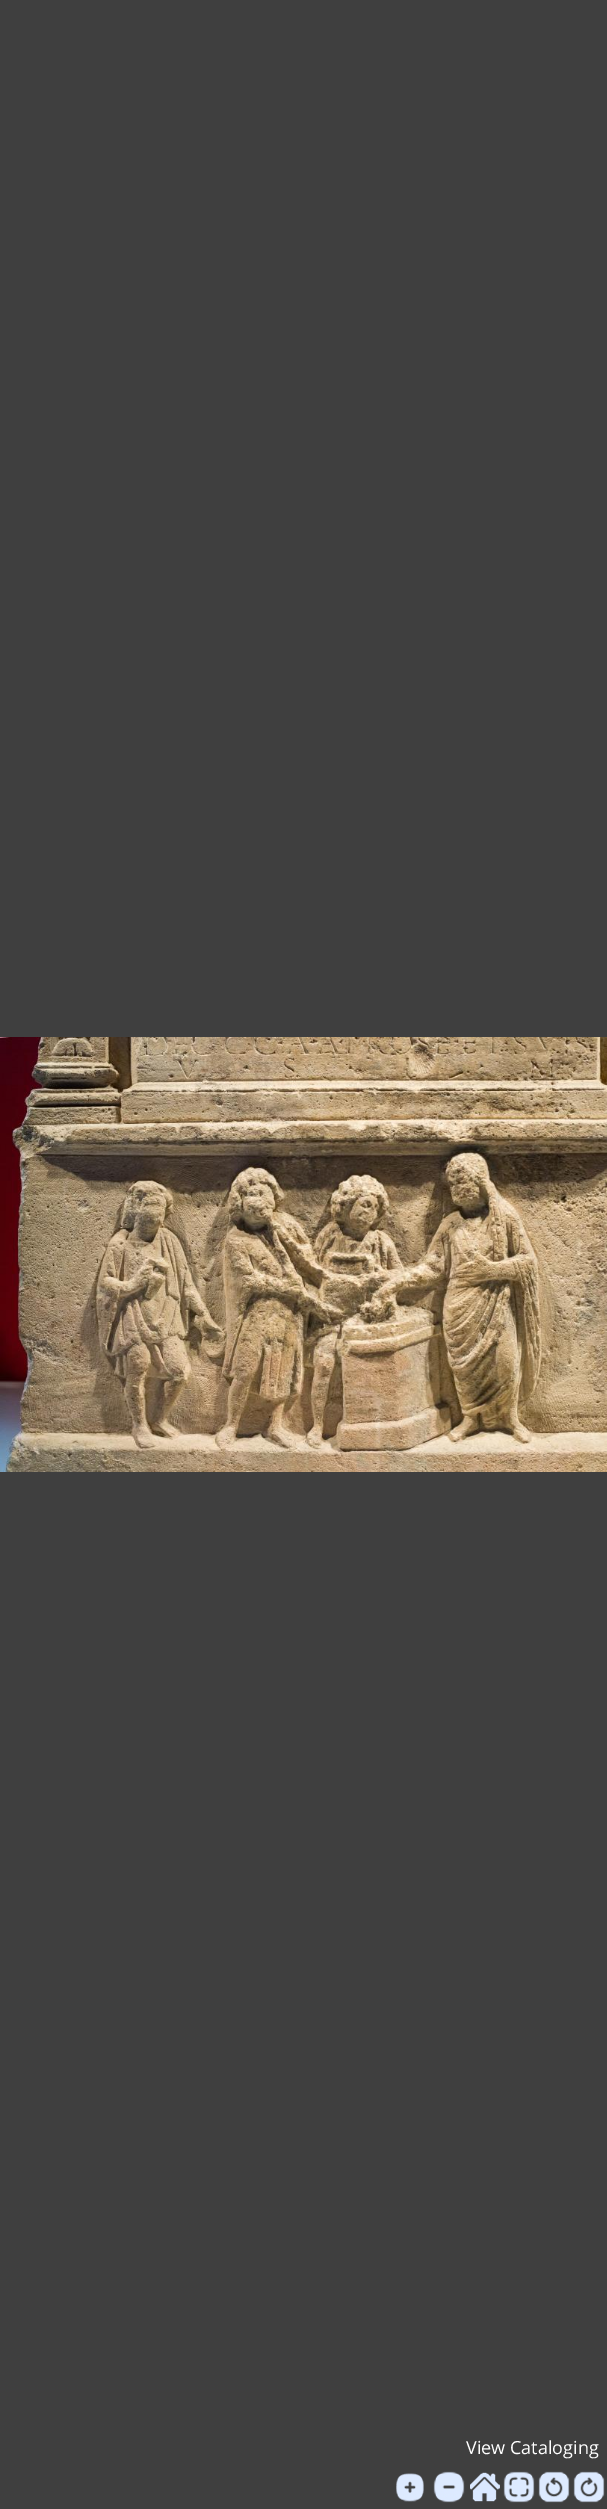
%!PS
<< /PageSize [607 2509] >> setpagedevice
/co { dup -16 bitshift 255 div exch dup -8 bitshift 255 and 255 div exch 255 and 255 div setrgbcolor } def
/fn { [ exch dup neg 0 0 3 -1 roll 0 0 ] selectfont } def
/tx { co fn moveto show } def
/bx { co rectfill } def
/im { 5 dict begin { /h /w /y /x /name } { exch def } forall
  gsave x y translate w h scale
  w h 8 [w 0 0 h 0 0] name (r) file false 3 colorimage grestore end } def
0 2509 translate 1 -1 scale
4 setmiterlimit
0 0 607 2509 16#3F3F3F bx
(media/1.raw) 0 1037 607 435 im
(media/2.raw) 396 2473 28 29 im
(media/3.raw) 396 2474 28 27 im
(media/4.raw) 433 2471 32 32 im
(media/5.raw) 434 2472 30 30 im
(media/6.raw) 470 2472 30 30 im
(media/7.raw) 503 2471 32 32 im
(media/8.raw) 504 2472 30 30 im
(media/9.raw) 538 2471 32 32 im
(media/10.raw) 539 2472 30 30 im
(media/11.raw) 573 2471 32 32 im
(media/12.raw) 574 2472 30 30 im
(View Cataloging) 466 2454 /OpenSans-Regular 18 16#FFFFFF tx
showpage
